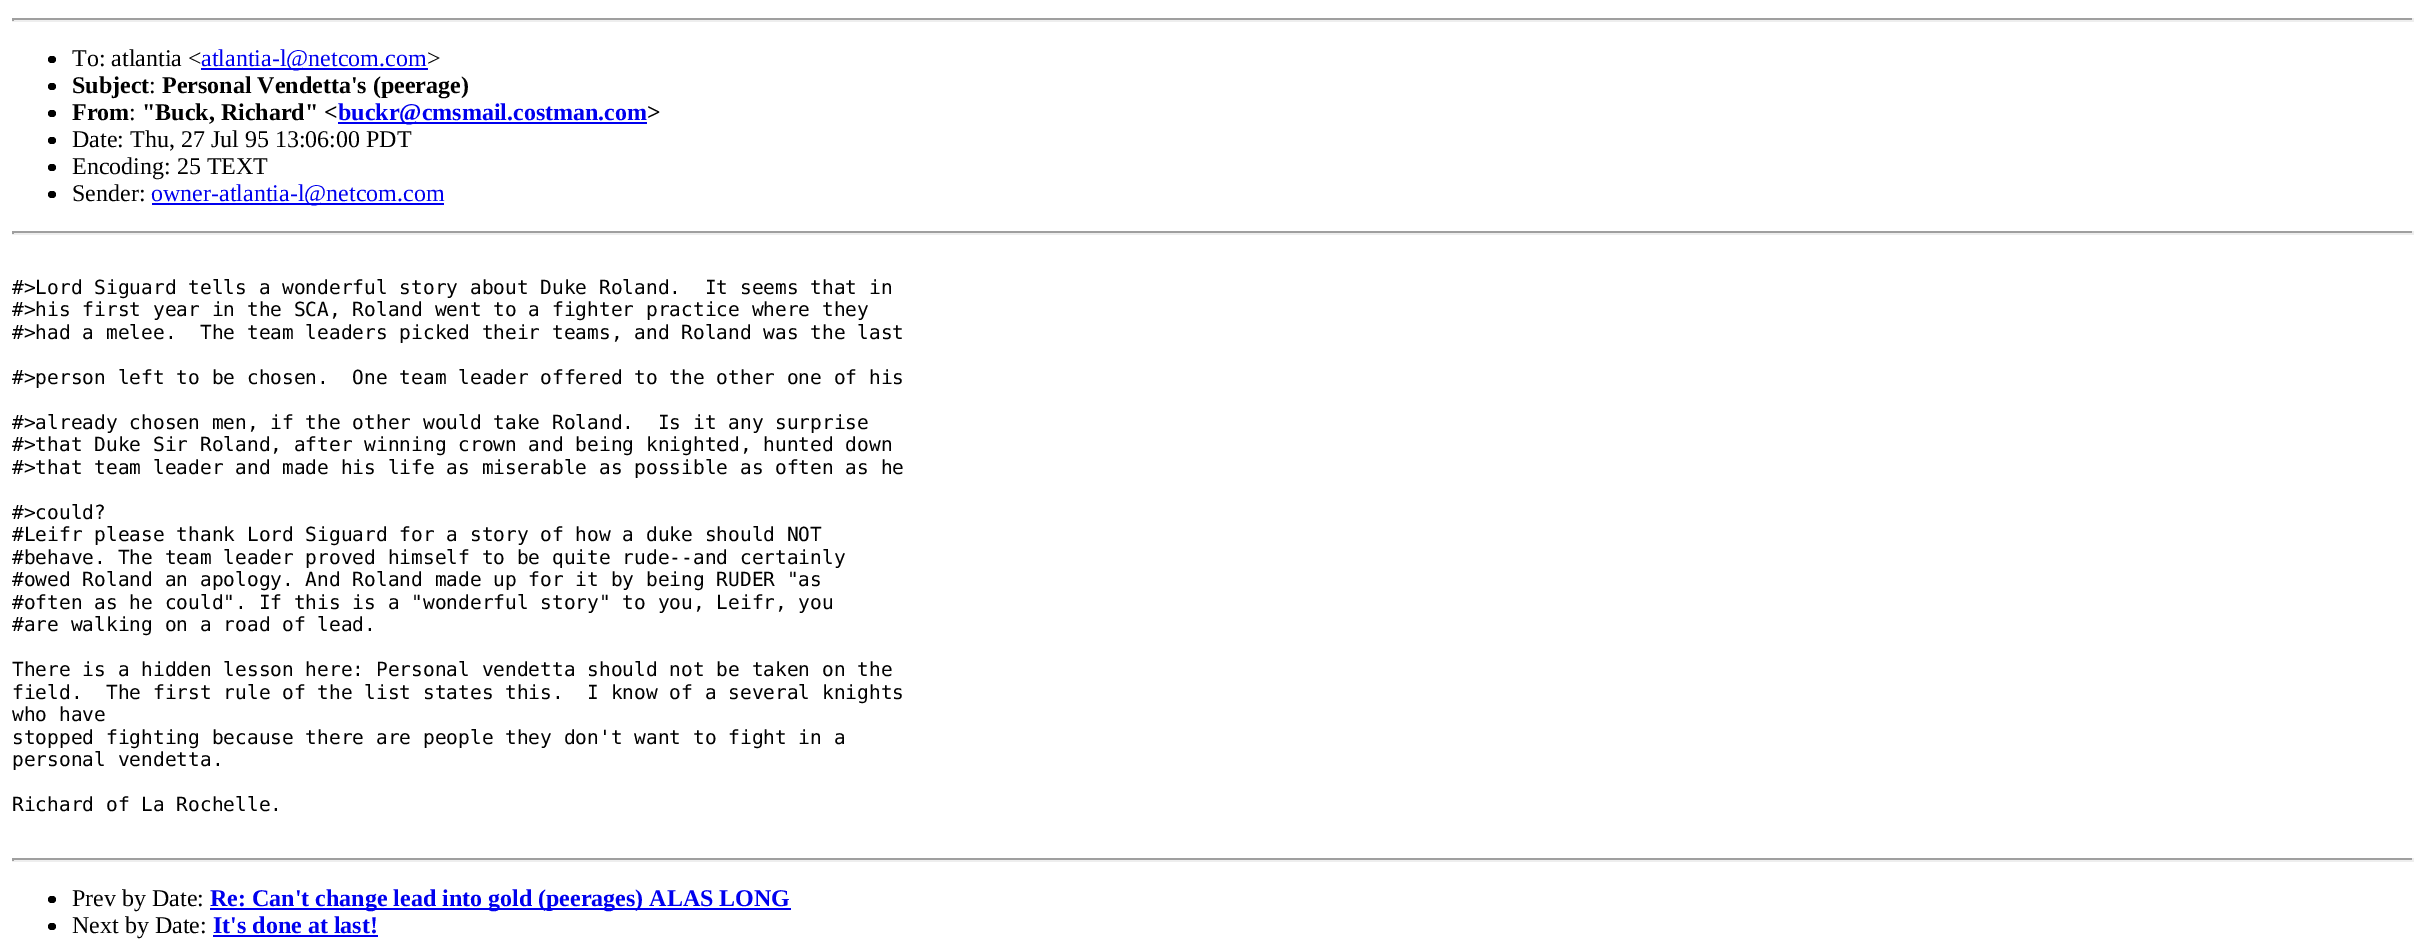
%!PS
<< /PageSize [2425 940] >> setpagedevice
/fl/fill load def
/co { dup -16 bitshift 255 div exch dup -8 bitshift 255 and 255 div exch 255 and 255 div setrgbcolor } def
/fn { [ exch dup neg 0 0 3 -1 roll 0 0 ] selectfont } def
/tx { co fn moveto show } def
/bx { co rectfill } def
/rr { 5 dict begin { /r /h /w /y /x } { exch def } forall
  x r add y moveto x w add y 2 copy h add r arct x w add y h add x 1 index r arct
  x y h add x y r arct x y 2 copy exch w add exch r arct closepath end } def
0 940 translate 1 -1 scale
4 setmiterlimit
0 0 2425 940 16#FFFFFF bx
12 18 2402 2 16#9F9F9F bx
2412 18 2 3 16#EEEEEE bx
12 20 2402 2 16#EEEEEE bx
12 18 2 3 16#9F9F9F bx
16#000000 co
48 56 8 7 3.5 rr fl
201 68 227 2 16#0000EE bx
16#000000 co
48 83 8 7 3.5 rr fl
48 110 8 7 3.5 rr fl
338 122 309 2 16#0000EE bx
16#000000 co
48 137 8 7 3.5 rr fl
48 164 8 7 3.5 rr fl
48 191 8 7 3.5 rr fl
152 203 292 2 16#0000EE bx
12 231 2402 2 16#9F9F9F bx
2412 231 2 3 16#EEEEEE bx
12 233 2402 2 16#EEEEEE bx
12 231 2 3 16#9F9F9F bx
12 858 2402 2 16#9F9F9F bx
2412 858 2 3 16#EEEEEE bx
12 860 2402 2 16#EEEEEE bx
12 858 2 3 16#9F9F9F bx
16#000000 co
48 896 8 7 3.5 rr fl
210 908 581 2 16#0000EE bx
16#000000 co
48 923 8 7 3.5 rr fl
213 935 165 2 16#0000EE bx
(To: atlantia <) 72 66 /LiberationSerif-Regular 24 16#000000 tx
(atlantia-l@netcom.com) 201 66 /LiberationSerif-Regular 24 16#0000EE tx
(>) 427 66 /LiberationSerif-Regular 24 16#000000 tx
(Subject) 72 93 /LiberationSerif-Bold 24 16#000000 tx
(:) 149 93 /LiberationSerif-Regular 24 16#000000 tx
(Personal Vendetta's \(peerage\)) 162 93 /LiberationSerif-Bold 24 16#000000 tx
(From) 72 120 /LiberationSerif-Bold 24 16#000000 tx
(:) 129 120 /LiberationSerif-Regular 24 16#000000 tx
("Buck, Richard" <) 142 120 /LiberationSerif-Bold 24 16#000000 tx
(buckr@cmsmail.costman.com) 338 120 /LiberationSerif-Bold 24 16#0000EE tx
(>) 647 120 /LiberationSerif-Bold 24 16#000000 tx
(Date: Thu, 27 Jul 95 13:06:00 PDT) 72 147 /LiberationSerif-Regular 24 16#000000 tx
(Encoding: 25 TEXT) 72 174 /LiberationSerif-Regular 24 16#000000 tx
(Sender:) 72 201 /LiberationSerif-Regular 24 16#000000 tx
(owner-atlantia-l@netcom.com) 151 201 /LiberationSerif-Regular 24 16#0000EE tx
(#>Lord Siguard tells a wonderful story about Duke Roland.  It seems that in) 12 294 /DejaVuSansMono-Regular 19.5 16#000000 tx
(#>his first year in the SCA, Roland went to a fighter practice where they) 12 316 /DejaVuSansMono-Regular 19.5 16#000000 tx
(#>had a melee.  The team leaders picked their teams, and Roland was the last) 12 339 /DejaVuSansMono-Regular 19.5 16#000000 tx
(#>person left to be chosen.  One team leader offered to the other one of his) 12 384 /DejaVuSansMono-Regular 19.5 16#000000 tx
(#>already chosen men, if the other would take Roland.  Is it any surprise) 12 429 /DejaVuSansMono-Regular 19.5 16#000000 tx
(#>that Duke Sir Roland, after winning crown and being knighted, hunted down) 12 451 /DejaVuSansMono-Regular 19.5 16#000000 tx
(#>that team leader and made his life as miserable as possible as often as he) 12 474 /DejaVuSansMono-Regular 19.5 16#000000 tx
(#>could?) 12 519 /DejaVuSansMono-Regular 19.5 16#000000 tx
(#Leifr please thank Lord Siguard for a story of how a duke should NOT) 12 541 /DejaVuSansMono-Regular 19.5 16#000000 tx
(#behave. The team leader proved himself to be quite rude--and certainly) 12 564 /DejaVuSansMono-Regular 19.5 16#000000 tx
(#owed Roland an apology. And Roland made up for it by being RUDER "as) 12 586 /DejaVuSansMono-Regular 19.5 16#000000 tx
(#often as he could". If this is a "wonderful story" to you, Leifr, you) 12 609 /DejaVuSansMono-Regular 19.5 16#000000 tx
(#are walking on a road of lead.) 12 631 /DejaVuSansMono-Regular 19.5 16#000000 tx
(There is a hidden lesson here: Personal vendetta should not be taken on the) 12 676 /DejaVuSansMono-Regular 19.5 16#000000 tx
(field.  The first rule of the list states this.  I know of a several knights) 12 699 /DejaVuSansMono-Regular 19.5 16#000000 tx
(who have) 12 721 /DejaVuSansMono-Regular 19.5 16#000000 tx
(stopped fighting because there are people they don't want to fight in a) 12 744 /DejaVuSansMono-Regular 19.5 16#000000 tx
(personal vendetta.) 12 766 /DejaVuSansMono-Regular 19.5 16#000000 tx
(Richard of La Rochelle.) 12 811 /DejaVuSansMono-Regular 19.5 16#000000 tx
(Prev by Date:) 72 906 /LiberationSerif-Regular 24 16#000000 tx
(Re: Can't change lead into gold \(peerages\) ALAS LONG) 210 906 /LiberationSerif-Bold 24 16#0000EE tx
(Next by Date:) 72 933 /LiberationSerif-Regular 24 16#000000 tx
(It's done at last!) 213 933 /LiberationSerif-Bold 24 16#0000EE tx
showpage
